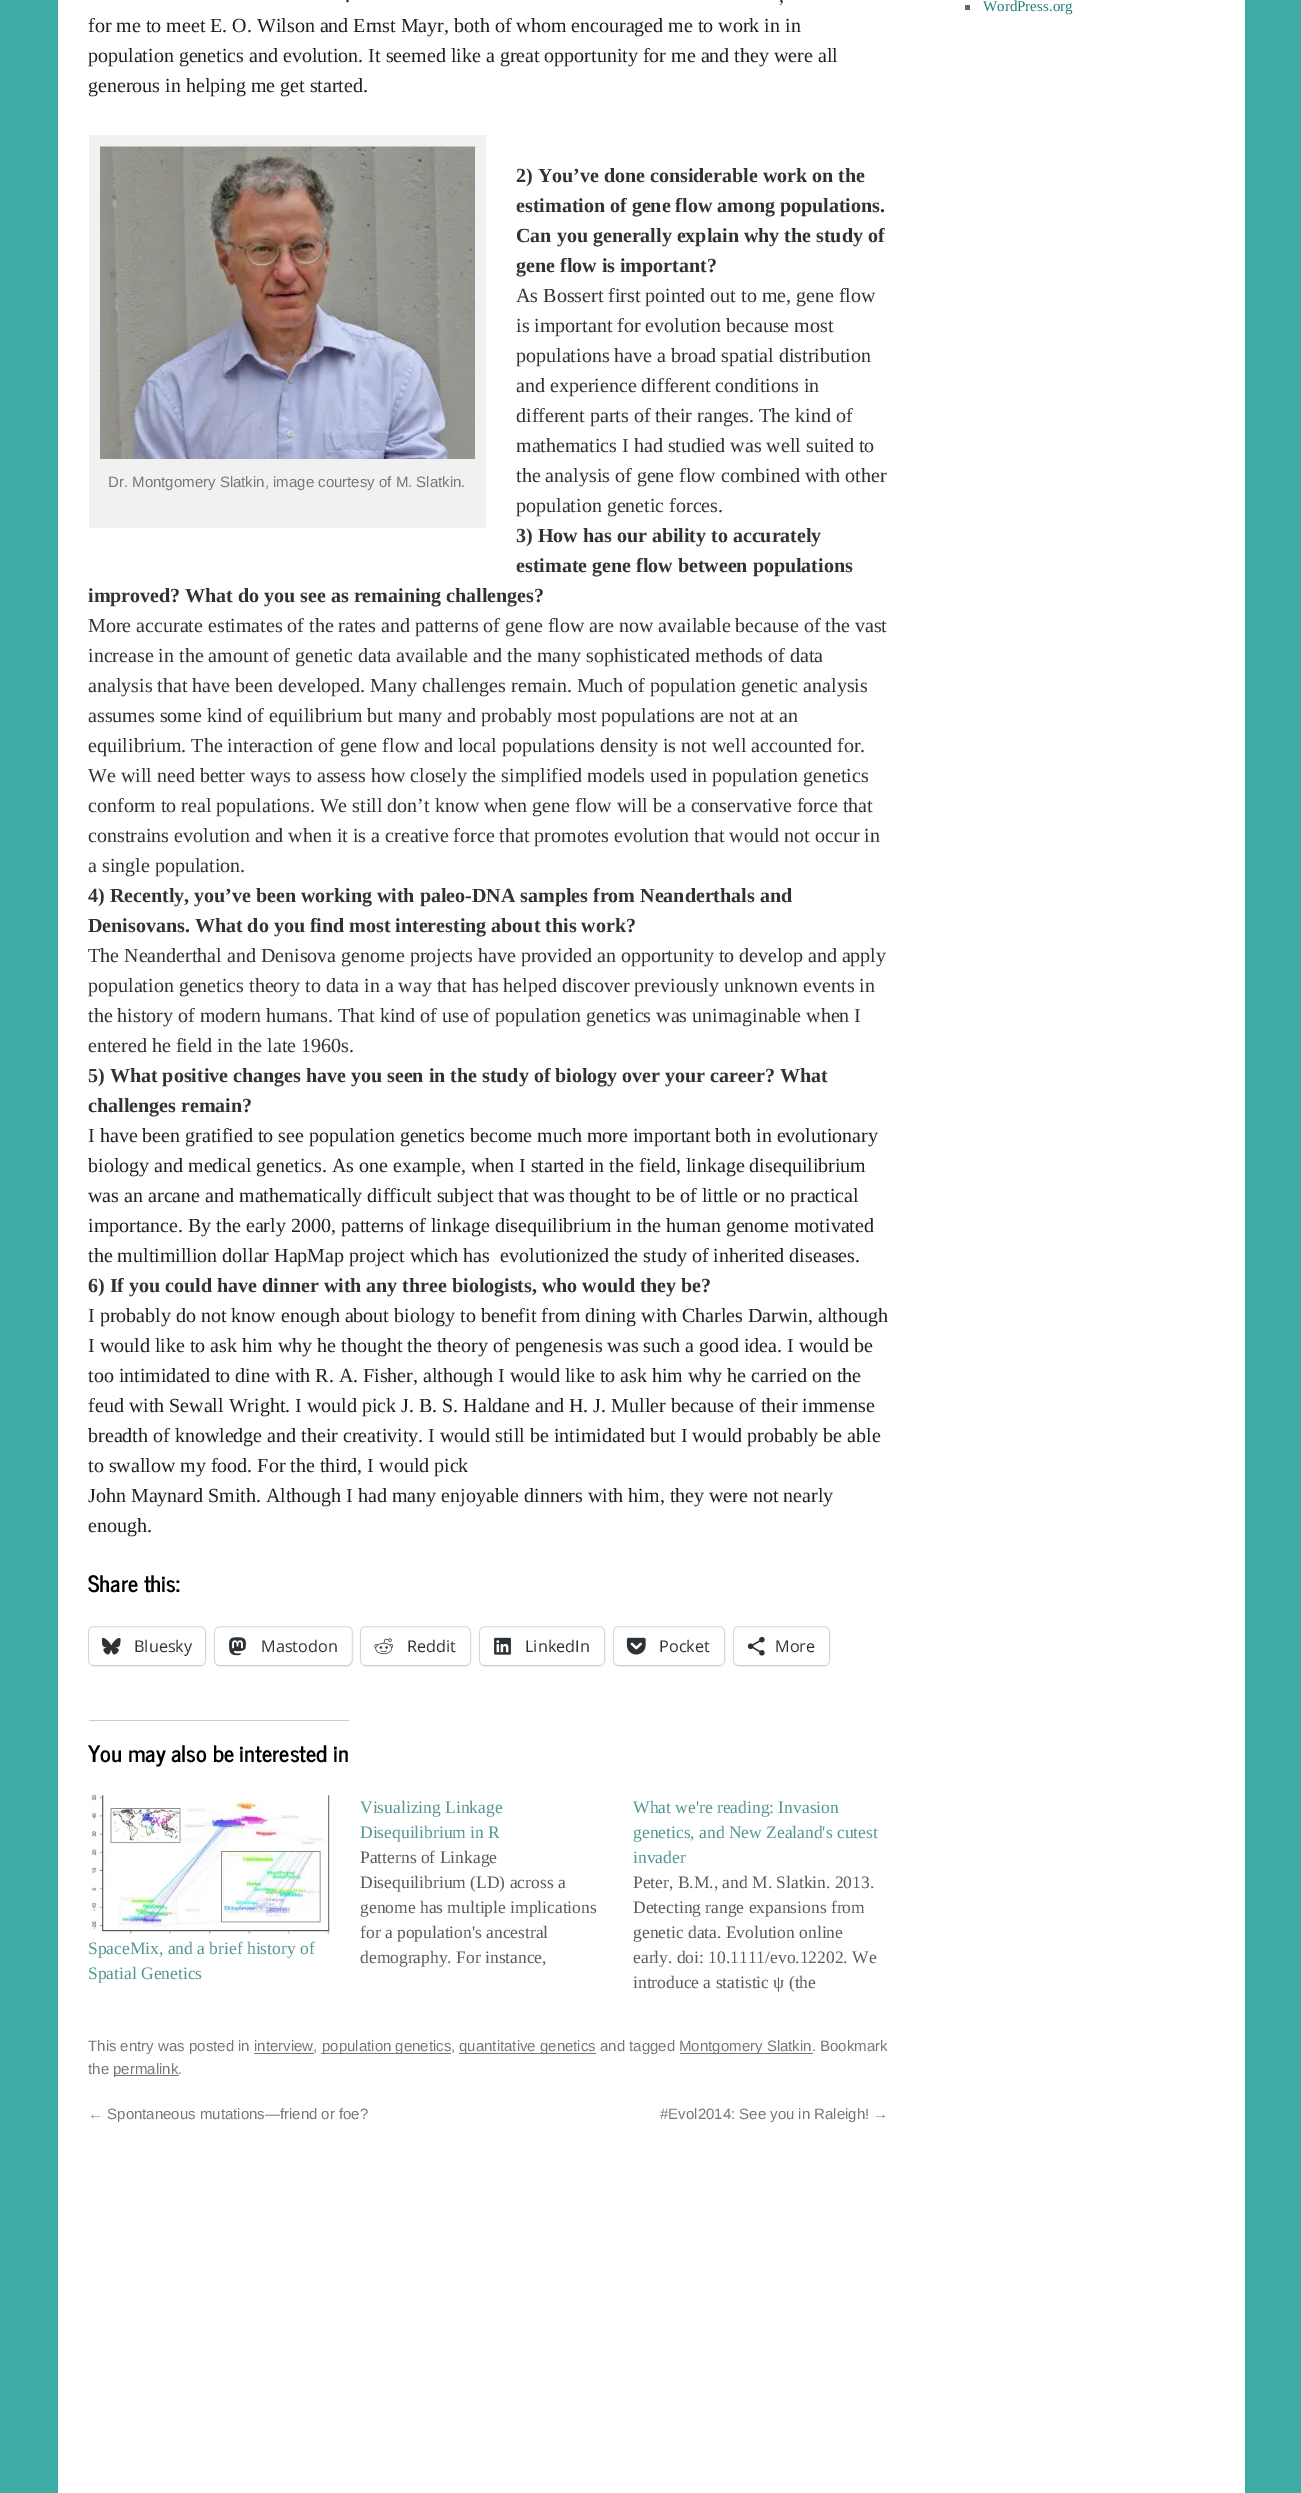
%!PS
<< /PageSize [1301 2493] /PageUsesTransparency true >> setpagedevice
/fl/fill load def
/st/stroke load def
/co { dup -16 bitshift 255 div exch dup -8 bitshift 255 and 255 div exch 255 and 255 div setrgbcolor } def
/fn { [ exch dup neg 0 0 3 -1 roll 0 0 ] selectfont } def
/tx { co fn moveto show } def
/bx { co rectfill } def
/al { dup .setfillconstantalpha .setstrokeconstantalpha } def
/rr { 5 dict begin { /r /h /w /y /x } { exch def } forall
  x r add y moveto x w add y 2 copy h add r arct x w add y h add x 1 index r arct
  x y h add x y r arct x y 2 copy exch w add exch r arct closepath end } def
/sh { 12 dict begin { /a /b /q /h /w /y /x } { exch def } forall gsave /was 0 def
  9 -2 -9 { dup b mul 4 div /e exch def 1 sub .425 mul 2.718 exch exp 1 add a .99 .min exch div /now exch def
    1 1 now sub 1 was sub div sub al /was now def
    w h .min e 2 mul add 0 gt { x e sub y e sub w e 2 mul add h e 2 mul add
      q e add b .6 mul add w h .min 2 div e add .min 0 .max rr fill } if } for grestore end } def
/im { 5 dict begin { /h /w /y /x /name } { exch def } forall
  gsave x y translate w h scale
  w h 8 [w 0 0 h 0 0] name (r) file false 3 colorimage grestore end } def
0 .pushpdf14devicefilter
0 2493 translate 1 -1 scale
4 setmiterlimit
0 0 1301 2493 16#3FABA6 bx
58 0 1187 2493 16#FFFFFF bx
89 135 397 393 16#F1F1F1 bx
(media/1.raw) 100 146 375 313 im
16#E0E0E0 co
88.5 1626.5 117 39 5.5 rr st
16#000000 co
89 1629 116 37 5 1 .12 sh
16#FFFFFF co
89 1628 116 37 5 rr fl
(media/2.raw) 101 1637 20 18 im
16#E0E0E0 co
214.5 1626.5 138 39 5.5 rr st
16#000000 co
215 1629 136 37 5 1 .12 sh
16#FFFFFF co
215 1628 136 37 5 rr fl
(media/3.raw) 229 1637 17 19 im
16#E0E0E0 co
360.5 1626.5 110 39 5.5 rr st
16#000000 co
361 1629 109 37 5 1 .12 sh
16#FFFFFF co
361 1628 109 37 5 rr fl
(media/4.raw) 374 1638 20 17 im
16#E0E0E0 co
479.5 1626.5 125 39 5.5 rr st
16#000000 co
480 1629 124 37 5 1 .12 sh
16#FFFFFF co
480 1628 124 37 5 rr fl
(media/5.raw) 494 1637 17 18 im
16#E0E0E0 co
613.5 1626.5 111 39 5.5 rr st
16#000000 co
614 1629 110 37 5 1 .12 sh
16#FFFFFF co
614 1628 110 37 5 rr fl
(media/6.raw) 626 1637 20 18 im
16#E0E0E0 co
733.5 1626.5 96 39 5.5 rr st
16#000000 co
734 1629 95 37 5 1 .12 sh
16#FFFFFF co
734 1628 95 37 5 rr fl
(media/7.raw) 747 1636 18 20 im
89 1720 260 1 16#CCCCCC bx
(media/8.raw) 91 1795 240 139 im
321 2053 130 1 16#777777 bx
459 2053 137 1 16#777777 bx
680 2053 133 1 16#777777 bx
254 2053 60 1 16#777777 bx
114 2075 65 1 16#777777 bx
965 5 5 5 16#666666 bx
(.) 345 2 /LiberationSerif-Regular 20 16#222222 tx
(,) 779 2 /LiberationSerif-Regular 20 16#222222 tx
(for me to meet E. O. Wilson and Ernst Mayr, both of whom encouraged me to work in in) 88 32 /LiberationSerif-Regular 20 16#222222 tx
(population genetics and evolution. It seemed like a great opportunity for me and they were all) 88 62 /LiberationSerif-Regular 20 16#222222 tx
(generous in helping me get started.) 88 92 /LiberationSerif-Regular 20 16#222222 tx
(2\) You’ve done considerable work on the) 516 182 /LiberationSerif-Bold 20 16#333333 tx
(estimation of gene flow among populations.) 516 212 /LiberationSerif-Bold 20 16#333333 tx
(Can you generally explain why the study of) 516 242 /LiberationSerif-Bold 20 16#333333 tx
(gene flow is important?) 516 272 /LiberationSerif-Bold 20 16#333333 tx
(As Bossert first pointed out to me, gene flow) 516 302 /LiberationSerif-Regular 20 16#333333 tx
(is important for evolution because most) 516 332 /LiberationSerif-Regular 20 16#333333 tx
(populations have a broad spatial distribution) 516 362 /LiberationSerif-Regular 20 16#333333 tx
(and experience different conditions in) 516 392 /LiberationSerif-Regular 20 16#333333 tx
(different parts of their ranges. The kind of) 516 422 /LiberationSerif-Regular 20 16#333333 tx
(mathematics I had studied was well suited to) 516 452 /LiberationSerif-Regular 20 16#333333 tx
(Dr. Montgomery Slatkin, image courtesy of M. Slatkin.) 108 487 /LiberationSans-Regular 15 16#777777 tx
(the analysis of gene flow combined with other) 516 482 /LiberationSerif-Regular 20 16#333333 tx
(population genetic forces.) 516 512 /LiberationSerif-Regular 20 16#333333 tx
(3\) How has our ability to accurately) 516 542 /LiberationSerif-Bold 20 16#333333 tx
(estimate gene flow between populations) 516 572 /LiberationSerif-Bold 20 16#333333 tx
(improved? What do you see as remaining challenges?) 88 602 /LiberationSerif-Bold 20 16#333333 tx
(More accurate estimates of the rates and patterns of gene flow are now available because of the vast) 88 632 /LiberationSerif-Regular 20 16#333333 tx
(increase in the amount of genetic data available and the many sophisticated methods of data) 88 662 /LiberationSerif-Regular 20 16#333333 tx
(analysis that have been developed. Many challenges remain. Much of population genetic analysis) 88 692 /LiberationSerif-Regular 20 16#333333 tx
(assumes some kind of equilibrium but many and probably most populations are not at an) 88 722 /LiberationSerif-Regular 20 16#333333 tx
(equilibrium. The interaction of gene flow and local populations density is not well accounted for.) 88 752 /LiberationSerif-Regular 20 16#333333 tx
(We will need better ways to assess how closely the simplified models used in population genetics) 88 782 /LiberationSerif-Regular 20 16#333333 tx
(conform to real populations. We still don’t know when gene flow will be a conservative force that) 88 812 /LiberationSerif-Regular 20 16#333333 tx
(constrains evolution and when it is a creative force that promotes evolution that would not occur in) 88 842 /LiberationSerif-Regular 20 16#333333 tx
(a single population.) 88 872 /LiberationSerif-Regular 20 16#333333 tx
(4\) Recently, you’ve been working with paleo-DNA samples from Neanderthals and) 88 902 /LiberationSerif-Bold 20 16#333333 tx
(Denisovans. What do you find most interesting about this work?) 88 932 /LiberationSerif-Bold 20 16#333333 tx
(The Neanderthal and Denisova genome projects have provided an opportunity to develop and apply) 88 962 /LiberationSerif-Regular 20 16#333333 tx
(population genetics theory to data in a way that has helped discover previously unknown events in) 88 992 /LiberationSerif-Regular 20 16#333333 tx
(the history of modern humans. That kind of use of population genetics was unimaginable when I) 88 1022 /LiberationSerif-Regular 20 16#333333 tx
(entered he field in the late 1960s.) 88 1052 /LiberationSerif-Regular 20 16#333333 tx
(5\) What positive changes have you seen in the study of biology over your career? What) 88 1082 /LiberationSerif-Bold 20 16#333333 tx
(challenges remain?) 88 1112 /LiberationSerif-Bold 20 16#333333 tx
(I have been gratified to see population genetics become much more important both in evolutionary) 88 1142 /LiberationSerif-Regular 20 16#222222 tx
(biology and medical genetics. As one example, when I started in the field, linkage disequilibrium) 88 1172 /LiberationSerif-Regular 20 16#222222 tx
(was an arcane and mathematically difficult subject that was thought to be of little or no practical) 88 1202 /LiberationSerif-Regular 20 16#222222 tx
(importance. By the early 2000, patterns of linkage disequilibrium in the human genome motivated) 88 1232 /LiberationSerif-Regular 20 16#222222 tx
(the multimillion dollar HapMap project which has  evolutionized the study of inherited diseases.) 88 1262 /LiberationSerif-Regular 20 16#222222 tx
(6\) If you could have dinner with any three biologists, who would they be?) 88 1292 /LiberationSerif-Bold 20 16#333333 tx
(I probably do not know enough about biology to benefit from dining with Charles Darwin, although) 88 1322 /LiberationSerif-Regular 20 16#222222 tx
(I would like to ask him why he thought the theory of pengenesis was such a good idea. I would be) 88 1352 /LiberationSerif-Regular 20 16#222222 tx
(too intimidated to dine with R. A. Fisher, although I would like to ask him why he carried on the) 88 1382 /LiberationSerif-Regular 20 16#222222 tx
(feud with Sewall Wright. I would pick J. B. S. Haldane and H. J. Muller because of their immense) 88 1412 /LiberationSerif-Regular 20 16#222222 tx
(breadth of knowledge and their creativity. I would still be intimidated but I would probably be able) 88 1442 /LiberationSerif-Regular 20 16#222222 tx
(to swallow my food. For the third, I would pick) 88 1472 /LiberationSerif-Regular 20 16#222222 tx
(John Maynard Smith. Although I had many enjoyable dinners with him, they were not nearly) 88 1502 /LiberationSerif-Regular 20 16#222222 tx
(enough.) 88 1532 /LiberationSerif-Regular 20 16#222222 tx
(Share this:) 88 1592 /NewsCycle-Bold 22.5 16#000000 tx
(Bluesky) 134 1652 /OpenSans-Regular 16.25 16#2C3338 tx
(Mastodon) 261 1652 /OpenSans-Regular 16.25 16#2C3338 tx
(Reddit) 407 1652 /OpenSans-Regular 16.25 16#2C3338 tx
(LinkedIn) 525 1652 /OpenSans-Regular 16.25 16#2C3338 tx
(Pocket) 659 1652 /OpenSans-Regular 16.25 16#2C3338 tx
(More) 775 1652 /OpenSans-Regular 16.25 16#2C3338 tx
(You may also be interested in) 88 1762 /NewsCycle-Bold 22.5 16#000000 tx
(SpaceMix, and a brief history of) 88 1954 /LiberationSerif-Regular 17.5 16#549693 tx
(Spatial Genetics) 88 1979 /LiberationSerif-Regular 17.5 16#549693 tx
(Visualizing Linkage) 360 1813 /LiberationSerif-Regular 17.5 16#549693 tx
(Disequilibrium in R) 360 1838 /LiberationSerif-Regular 17.5 16#549693 tx
(Patterns of Linkage) 360 1863 /LiberationSerif-Regular 17.5 16#5C5C5C tx
(Disequilibrium \(LD\) across a) 360 1888 /LiberationSerif-Regular 17.5 16#5C5C5C tx
(genome has multiple implications) 360 1913 /LiberationSerif-Regular 17.5 16#5C5C5C tx
(for a population's ancestral) 360 1938 /LiberationSerif-Regular 17.5 16#5C5C5C tx
(demography. For instance,) 360 1963 /LiberationSerif-Regular 17.5 16#5C5C5C tx
(What we're reading: Invasion) 633 1813 /LiberationSerif-Regular 17.5 16#549693 tx
(genetics, and New Zealand's cutest) 633 1838 /LiberationSerif-Regular 17.5 16#549693 tx
(invader) 633 1863 /LiberationSerif-Regular 17.5 16#549693 tx
(Peter, B.M., and M. Slatkin. 2013.) 633 1888 /LiberationSerif-Regular 17.5 16#5C5C5C tx
(Detecting range expansions from) 633 1913 /LiberationSerif-Regular 17.5 16#5C5C5C tx
(genetic data. Evolution online) 633 1938 /LiberationSerif-Regular 17.5 16#5C5C5C tx
(early. doi: 10.1111/evo.12202. We) 633 1963 /LiberationSerif-Regular 17.5 16#5C5C5C tx
(introduce a statistic ψ \(the) 633 1988 /LiberationSerif-Regular 17.5 16#5C5C5C tx
(This entry was posted in interview,) 88 2051 /LiberationSans-Regular 15 16#777777 tx
(population genetics,) 322 2051 /LiberationSans-Regular 15 16#777777 tx
(quantitative genetics and tagged) 459 2051 /LiberationSans-Regular 15 16#777777 tx
(Montgomery Slatkin. Bookmark) 679 2051 /LiberationSans-Regular 15 16#777777 tx
(the) 88 2074 /LiberationSans-Regular 15 16#777777 tx
(permalink.) 113 2074 /LiberationSans-Regular 15 16#777777 tx
(← Spontaneous mutations—friend or foe?) 88 2119 /LiberationSans-Regular 15 16#777777 tx
(#Evol2014: See you in Raleigh! →) 660 2119 /LiberationSans-Regular 15 16#777777 tx
(WordPress.org) 983 11 /LiberationSerif-Regular 15 16#297C78 tx
.poppdf14devicefilter showpage
